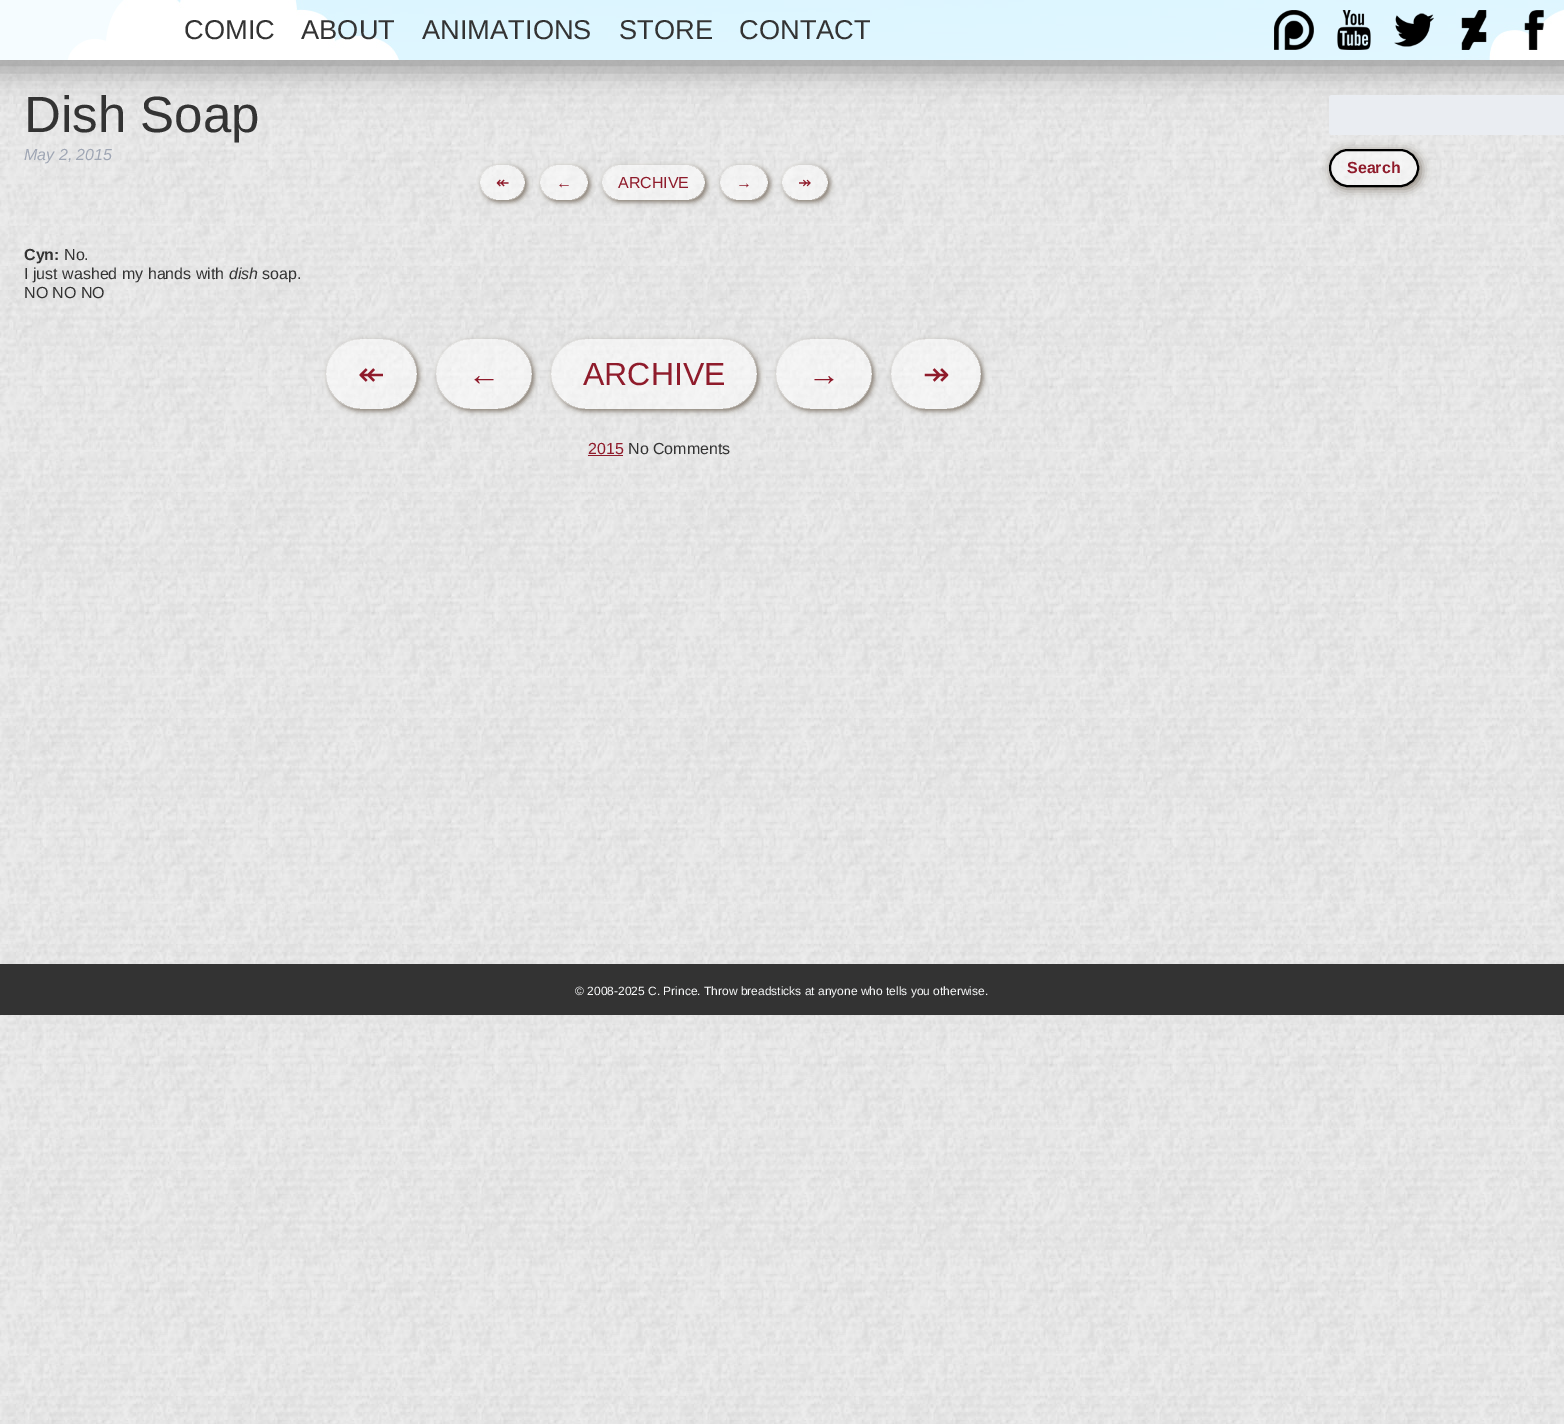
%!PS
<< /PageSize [1564 1424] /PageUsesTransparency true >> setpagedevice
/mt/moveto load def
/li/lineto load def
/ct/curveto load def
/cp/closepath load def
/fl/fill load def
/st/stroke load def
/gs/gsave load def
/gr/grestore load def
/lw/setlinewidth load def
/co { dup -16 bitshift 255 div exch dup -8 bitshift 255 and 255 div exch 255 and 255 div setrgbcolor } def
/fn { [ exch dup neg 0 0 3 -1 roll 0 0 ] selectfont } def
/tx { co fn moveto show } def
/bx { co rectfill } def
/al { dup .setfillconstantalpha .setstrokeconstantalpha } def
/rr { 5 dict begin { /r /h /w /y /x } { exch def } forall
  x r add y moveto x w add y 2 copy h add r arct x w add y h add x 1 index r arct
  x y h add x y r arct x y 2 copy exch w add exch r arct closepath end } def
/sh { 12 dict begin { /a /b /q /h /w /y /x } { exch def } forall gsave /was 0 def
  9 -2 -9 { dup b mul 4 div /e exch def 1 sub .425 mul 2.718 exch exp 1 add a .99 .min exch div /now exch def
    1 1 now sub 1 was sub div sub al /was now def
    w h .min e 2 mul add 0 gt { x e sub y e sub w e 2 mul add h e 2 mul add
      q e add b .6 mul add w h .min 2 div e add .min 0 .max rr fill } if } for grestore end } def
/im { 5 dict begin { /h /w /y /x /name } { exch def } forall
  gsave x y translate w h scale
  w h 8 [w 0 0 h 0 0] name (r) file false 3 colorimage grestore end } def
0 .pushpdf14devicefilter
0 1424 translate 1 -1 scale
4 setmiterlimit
0 0 1564 1424 16#FFFFFF bx
(media/1.raw) 0 60 1564 1364 im
16#999999 co
-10 -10 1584 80 0 15 1 sh
(media/2.raw) 0 0 1564 60 im
0.7 al
0 0 124 60 16#FFFFFF bx
1 al
(media/3.raw) 1274 10 40 40 im
(media/4.raw) 1337 10 34 40 im
(media/5.raw) 1394 13 40 34 im
(media/6.raw) 1461 10 26 40 im
(media/7.raw) 1524 10 20 40 im
gs
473 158 mt 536 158 li 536 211 li 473 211 li cp 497.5 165 mt 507.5 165 li 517 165 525 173 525 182.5 ct 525 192 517 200 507.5 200 ct 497.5 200 li 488 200 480 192 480 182.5 ct 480 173 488 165 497.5 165 ct cp eoclip newpath
16#857B70 co
482 167 45 35 17.5 2.5 1 sh
gr
0.5 al
480 165 45 35 17.5 rr fl
gs
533 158 mt 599 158 li 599 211 li 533 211 li cp 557.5 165 mt 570.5 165 li 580 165 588 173 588 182.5 ct 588 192 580 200 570.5 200 ct 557.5 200 li 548 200 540 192 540 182.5 ct 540 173 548 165 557.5 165 ct cp eoclip newpath
1 al
16#857B70 co
542 167 48 35 17.5 2.5 1 sh
gr
540 165 48 35 17.5 rr fl
gs
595 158 mt 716 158 li 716 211 li 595 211 li cp 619.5 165 mt 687.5 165 li 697 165 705 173 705 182.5 ct 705 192 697 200 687.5 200 ct 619.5 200 li 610 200 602 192 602 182.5 ct 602 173 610 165 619.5 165 ct cp eoclip newpath
1 al
16#857B70 co
604 167 103 35 17.5 2.5 1 sh
gr
602 165 103 35 17.5 rr fl
gs
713 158 mt 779 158 li 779 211 li 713 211 li cp 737.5 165 mt 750.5 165 li 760 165 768 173 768 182.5 ct 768 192 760 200 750.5 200 ct 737.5 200 li 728 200 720 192 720 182.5 ct 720 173 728 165 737.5 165 ct cp eoclip newpath
1 al
16#857B70 co
722 167 48 35 17.5 2.5 1 sh
gr
720 165 48 35 17.5 rr fl
gs
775 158 mt 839 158 li 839 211 li 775 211 li cp 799.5 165 mt 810.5 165 li 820 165 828 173 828 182.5 ct 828 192 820 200 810.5 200 ct 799.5 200 li 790 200 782 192 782 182.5 ct 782 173 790 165 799.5 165 ct cp eoclip newpath
1 al
16#857B70 co
784 167 46 35 17.5 2.5 1 sh
gr
782 165 46 35 17.5 rr fl
gs
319 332 mt 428 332 li 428 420 li 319 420 li cp 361 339 mt 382 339 li 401.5 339 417 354.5 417 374 ct 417 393.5 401.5 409 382 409 ct 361 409 li 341.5 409 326 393.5 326 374 ct 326 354.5 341.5 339 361 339 ct cp eoclip newpath
1 al
16#857B70 co
328 341 91 70 35 2.5 1 sh
gr
326 339 91 70 35 rr fl
gs
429 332 mt 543 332 li 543 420 li 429 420 li cp 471 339 mt 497 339 li 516.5 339 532 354.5 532 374 ct 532 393.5 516.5 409 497 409 ct 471 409 li 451.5 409 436 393.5 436 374 ct 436 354.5 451.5 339 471 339 ct cp eoclip newpath
1 al
16#857B70 co
438 341 96 70 35 2.5 1 sh
gr
436 339 96 70 35 rr fl
gs
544 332 mt 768 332 li 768 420 li 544 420 li cp 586 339 mt 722 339 li 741.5 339 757 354.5 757 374 ct 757 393.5 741.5 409 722 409 ct 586 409 li 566.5 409 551 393.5 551 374 ct 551 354.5 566.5 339 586 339 ct cp eoclip newpath
1 al
16#857B70 co
553 341 206 70 35 2.5 1 sh
gr
551 339 206 70 35 rr fl
gs
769 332 mt 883 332 li 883 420 li 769 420 li cp 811 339 mt 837 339 li 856.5 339 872 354.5 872 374 ct 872 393.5 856.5 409 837 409 ct 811 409 li 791.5 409 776 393.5 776 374 ct 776 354.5 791.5 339 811 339 ct cp eoclip newpath
1 al
16#857B70 co
778 341 96 70 35 2.5 1 sh
gr
776 339 96 70 35 rr fl
gs
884 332 mt 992 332 li 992 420 li 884 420 li cp 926 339 mt 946 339 li 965.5 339 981 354.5 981 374 ct 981 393.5 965.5 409 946 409 ct 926 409 li 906.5 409 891 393.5 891 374 ct 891 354.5 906.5 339 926 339 ct cp eoclip newpath
1 al
16#857B70 co
893 341 90 70 35 2.5 1 sh
gr
891 339 90 70 35 rr fl
1 al
588 455 35 1 16#8F1B2B bx
16#EAEDF2 co
1329 95 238 40 3 rr fl
gs
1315 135 mt 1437 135 li 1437 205 li 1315 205 li cp 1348 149 mt 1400 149 li 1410.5 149 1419 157.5 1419 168 ct 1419 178.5 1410.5 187 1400 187 ct 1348 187 li 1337.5 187 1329 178.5 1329 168 ct 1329 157.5 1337.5 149 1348 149 ct cp eoclip newpath
16#857B70 co
1331 151 90 38 19 5 1 sh
gr
0.5 al
16#FFFFFF co
1330 150 88 36 18 rr fl
1 al
16#000000 co
2 lw
1330 150 88 36 18 rr st
0 964 1564 51 16#333333 bx
(COMIC) 184 39 /LiberationSans-Regular 27.25 16#333333 tx
(ABOUT) 301 39 /LiberationSans-Regular 27.25 16#333333 tx
(ANIMATIONS) 422 39 /LiberationSans-Regular 27.25 16#333333 tx
(STORE) 619 39 /LiberationSans-Regular 27.25 16#333333 tx
(CONTACT) 739 39 /LiberationSans-Regular 27.25 16#333333 tx
(Dish Soap) 24 132 /LiberationSans-Regular 51 16#333333 tx
(May 2, 2015) 24 160 /LiberationSans-Italic 16 16#9FA6B4 tx
(↞) 496 188 /DejaVuSans-Regular 16 16#8F1B2B tx
(←) 556 188 /LiberationSans-Regular 16 16#8F1B2B tx
(ARCHIVE) 618 188 /LiberationSans-Regular 16 16#8F1B2B tx
(→) 736 188 /LiberationSans-Regular 16 16#8F1B2B tx
(↠) 798 188 /DejaVuSans-Regular 16 16#8F1B2B tx
(Cyn:) 24 260 /LiberationSans-Bold 16 16#333333 tx
(No.) 64 260 /LiberationSans-Regular 16 16#333333 tx
(I just washed my hands with) 24 279 /LiberationSans-Regular 16 16#333333 tx
(dish) 229 279 /LiberationSans-Italic 16 16#333333 tx
(soap.) 262 279 /LiberationSans-Regular 16 16#333333 tx
(NO NO NO) 24 298 /LiberationSans-Regular 16 16#333333 tx
(↞) 358 385 /DejaVuSans-Regular 32 16#8F1B2B tx
(←) 468 385 /LiberationSans-Regular 32 16#8F1B2B tx
(ARCHIVE) 583 385 /LiberationSans-Regular 32 16#8F1B2B tx
(→) 808 385 /LiberationSans-Regular 32 16#8F1B2B tx
(↠) 923 385 /DejaVuSans-Regular 32 16#8F1B2B tx
(2015) 588 454 /LiberationSans-Regular 16 16#8F1B2B tx
(No Comments) 628 454 /LiberationSans-Regular 16 16#333333 tx
(Search) 1347 173 /LiberationSans-Bold 16 16#8F1B2B tx
(© 2008-2025 C. Prince. Throw breadsticks at anyone who tells you otherwise.) 575 995 /LiberationSans-Regular 12 16#F8F9FA tx
.poppdf14devicefilter showpage
